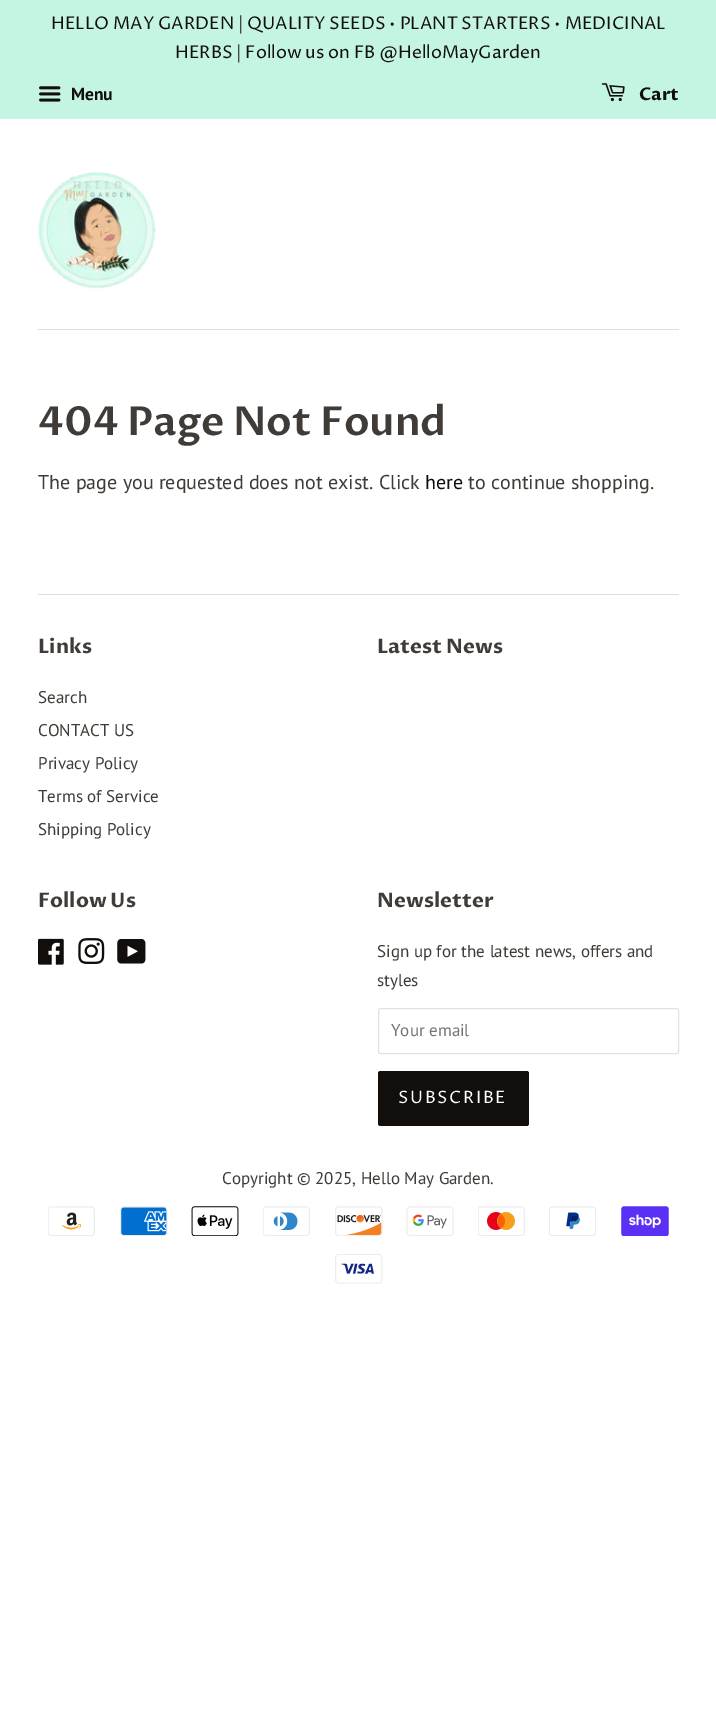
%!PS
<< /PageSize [716 1727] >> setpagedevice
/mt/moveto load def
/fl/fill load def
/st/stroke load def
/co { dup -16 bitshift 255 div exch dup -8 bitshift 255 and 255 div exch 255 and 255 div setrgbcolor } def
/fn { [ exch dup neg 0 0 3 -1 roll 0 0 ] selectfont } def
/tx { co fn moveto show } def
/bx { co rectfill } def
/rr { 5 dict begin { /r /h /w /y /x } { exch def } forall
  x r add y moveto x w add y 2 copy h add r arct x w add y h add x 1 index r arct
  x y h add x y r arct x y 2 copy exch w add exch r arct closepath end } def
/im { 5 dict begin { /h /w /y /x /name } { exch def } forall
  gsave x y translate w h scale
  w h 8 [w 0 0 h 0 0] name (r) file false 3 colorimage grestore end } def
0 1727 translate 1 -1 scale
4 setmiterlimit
0 0 716 1727 16#FFFFFF bx
0 0 716 119 16#C4F5E2 bx
(media/1.raw) 39 86 22 16 im
(media/2.raw) 601 83 24 19 im
38 329 641 1 16#DDDDDD bx
(media/3.raw) 38 172 118 117 im
38 594 641 1 16#DDDDDD bx
(media/4.raw) 38 938 26 27 im
(media/5.raw) 78 938 27 26 im
(media/6.raw) 117 939 29 25 im
16#E2E2E1 co
378.5 1008.5 300 45 2 rr st
16#120E0B co
378 1071 151 55 2.5 rr fl
(media/7.raw) 48 1206 47 30 im
(media/8.raw) 120 1206 48 30 im
(media/9.raw) 191 1206 48 30 im
(media/10.raw) 263 1206 47 30 im
(media/11.raw) 335 1206 48 30 im
(media/12.raw) 406 1206 48 30 im
(media/13.raw) 478 1206 47 30 im
(media/14.raw) 549 1206 47 30 im
(media/15.raw) 621 1206 48 30 im
(media/16.raw) 335 1254 48 30 im
(HELLO MAY GARDEN | QUALITY SEEDS • PLANT STARTERS • MEDICINAL) 51 29 /ProzaLibre-Regular 17.5 16#120E0B tx
(HERBS | Follow us on FB @HelloMayGarden) 175 58 /ProzaLibre-Regular 17.5 16#120E0B tx
(Menu) 71 100 /PTSans-Bold 17.5 16#120E0B tx
(Cart) 639 100 /ProzaLibre-Bold 17.5 16#120E0B tx
(404 Page Not Found) 38 435 /ProzaLibre-SemiBold 40 16#403B37 tx
(The page you requested does not exist. Click) 38 489 /PTSans-Regular 20 16#403B37 tx
(here) 425 489 /PTSans-Regular 20 16#120E0B tx
(to continue shopping.) 468 489 /PTSans-Regular 20 16#403B37 tx
(Links) 38 653 /ProzaLibre-Bold 20 16#403B37 tx
(Search) 38 703 /PTSans-Regular 17 16#403B37 tx
(CONTACT US) 38 736 /PTSans-Regular 17 16#403B37 tx
(Privacy Policy) 38 769 /PTSans-Regular 17 16#403B37 tx
(Terms of Service) 38 802 /PTSans-Regular 17 16#403B37 tx
(Shipping Policy) 38 835 /PTSans-Regular 17 16#403B37 tx
(Latest News) 377 653 /ProzaLibre-Bold 20 16#403B37 tx
(Follow Us) 38 907 /ProzaLibre-Bold 20 16#403B37 tx
(Newsletter) 377 907 /ProzaLibre-Bold 20 16#403B37 tx
(Sign up for the latest news, offers and) 377 957 /PTSans-Regular 17 16#403B37 tx
(styles) 377 986 /PTSans-Regular 17 16#403B37 tx
(Your email) 391 1036 /PTSans-Regular 17 16#757575 tx
/ProzaLibre-Regular 17 fn
16#FFFFFF co
398 1103 mt 1.75 0 (SUBSCRIBE) ashow
(Copyright © 2025, Hello May Garden.) 222 1184 /PTSans-Regular 17 16#403B37 tx
showpage
